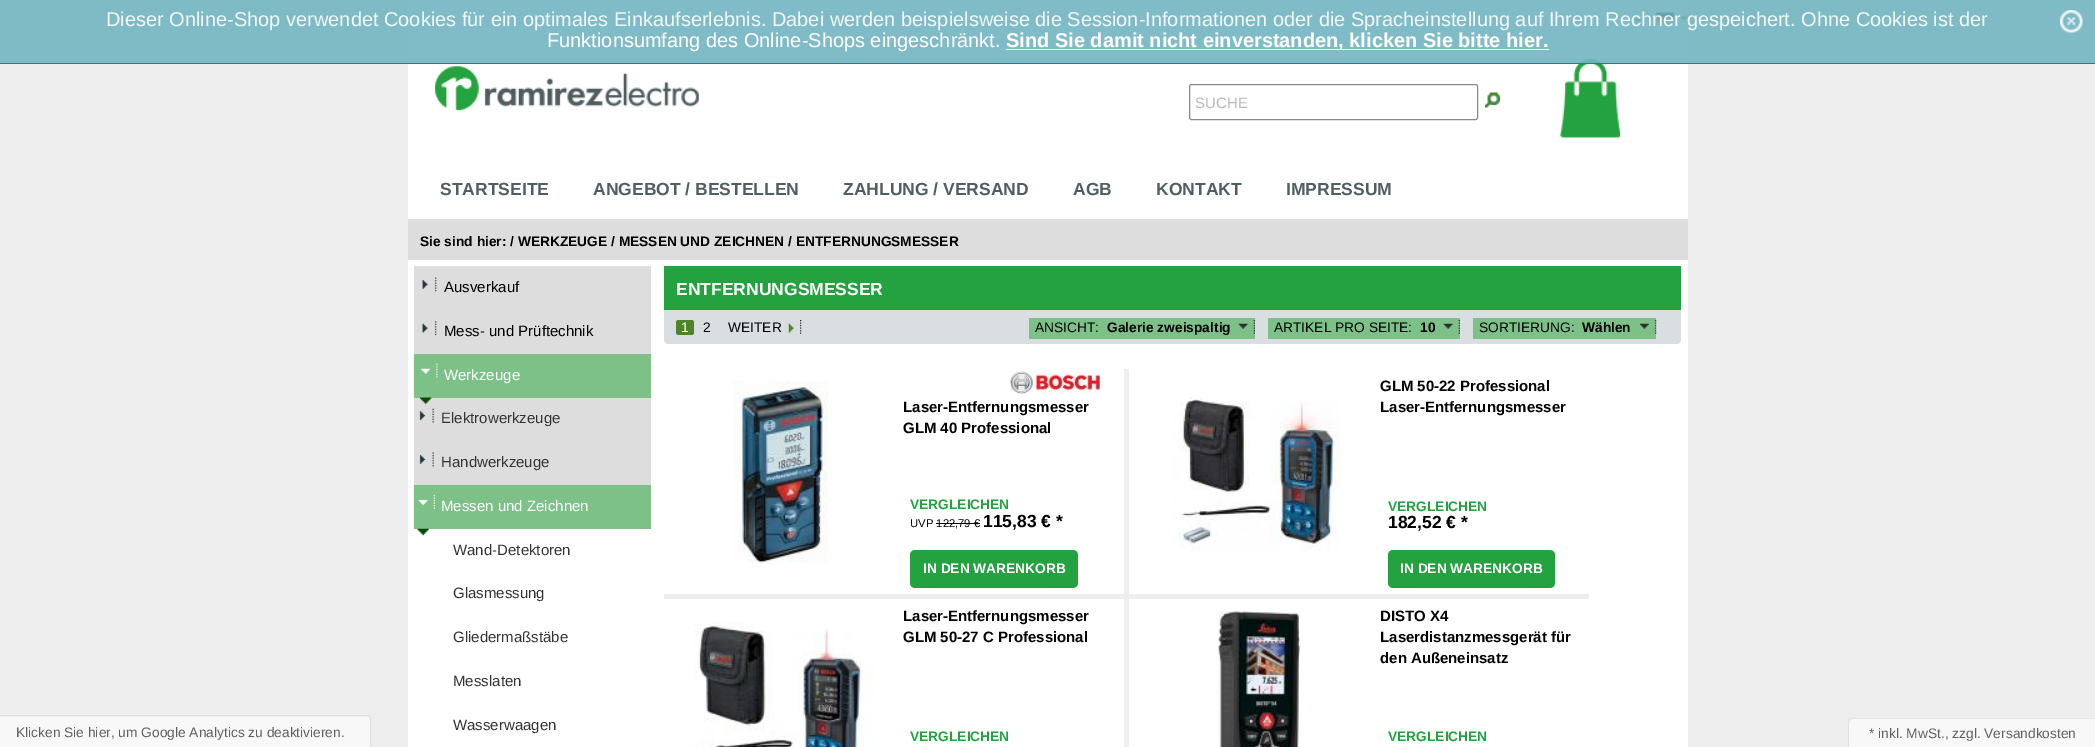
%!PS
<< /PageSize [2095 747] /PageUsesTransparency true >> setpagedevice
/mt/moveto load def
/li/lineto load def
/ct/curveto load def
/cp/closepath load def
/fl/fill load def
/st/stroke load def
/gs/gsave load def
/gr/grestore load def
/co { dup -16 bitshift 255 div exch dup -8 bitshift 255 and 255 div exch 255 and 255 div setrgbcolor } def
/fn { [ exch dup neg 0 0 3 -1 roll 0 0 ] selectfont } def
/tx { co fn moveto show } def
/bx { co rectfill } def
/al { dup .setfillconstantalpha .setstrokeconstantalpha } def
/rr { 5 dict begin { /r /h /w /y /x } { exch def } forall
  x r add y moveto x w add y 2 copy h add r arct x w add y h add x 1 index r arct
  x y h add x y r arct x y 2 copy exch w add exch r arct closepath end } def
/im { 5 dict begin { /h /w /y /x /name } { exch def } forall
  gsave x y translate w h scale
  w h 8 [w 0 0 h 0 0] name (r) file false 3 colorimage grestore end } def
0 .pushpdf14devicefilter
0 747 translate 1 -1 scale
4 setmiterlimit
0 0 2095 747 16#EEEEEE bx
408 0 1280 747 16#FFFFFF bx
(media/2.raw) 1467 13 2 14 im
(media/3.raw) 1576 13 2 14 im
(media/4.raw) 1633 18 9 5 im
(media/5.raw) 1648 13 2 14 im
(media/6.raw) 1680 16 8 4 im
(media/7.raw) 1656 12 18 13 im
(media/10.raw) 1559 58 62 80 im
0.9 al
0 0 2095 64 16#72B5C1 bx
0 63 2095 1 16#207484 bx
1 al
(media/1.raw) 2060 10 23 23 im
1006 49 543 1 16#FFFFFF bx
(media/8.raw) 434 66 266 45 im
16#8C8989 co
1189.5 84.5 288 35 2 rr st
(media/9.raw) 1485 92 16 16 im
408 219 1280 41 16#DDDDDD bx
16#F8F8F8 co
-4.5 715.5 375 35 3.5 rr gs fl gr
16#DEDEDE co
st
414 266 237 88 16#DDDDDD bx
(media/11.raw) 422 277 15 15 im
(media/12.raw) 422 321 15 15 im
414 398 237 87 16#DDDDDD bx
414 354 237 44 16#7DC189 bx
(media/13.raw) 421 363 17 15 im
(media/14.raw) 420 397 12 8 im
(media/15.raw) 419 408 15 15 im
(media/16.raw) 419 452 15 15 im
414 485 237 44 16#7DC189 bx
(media/17.raw) 418 494 17 15 im
(media/18.raw) 417 528 12 8 im
664 266 1017 44 16#24A23F bx
16#D9DFE1 co
664 310 mt 1681 310 li 1681 340 li 1681 342 1679 344 1677 344 ct 668 344 li 666 344 664 342 664 340 ct cp fl
(media/19.raw) 800 320 2 14 im
16#4D8528 co
676 320 18 15 2.5 rr fl
(media/20.raw) 788 323 6 10 im
1029 318 226 21 16#7DC189 bx
(media/21.raw) 1238 320 17 14 im
1268 318 192 21 16#7DC189 bx
(media/21.raw) 1443 320 17 14 im
1473 318 183 21 16#7DC189 bx
(media/22.raw) 1640 320 17 14 im
1124 369 5 225 16#EEEEEE bx
(media/23.raw) 733 381 95 183 im
(media/24.raw) 1010 371 90 23 im
936 523 44 1 16#000000 bx
16#24A23F co
910 550 168 38 5 rr fl
(media/25.raw) 1171 397 169 154 im
1388 550 167 38 5 rr fl
664 594 925 5 16#EEEEEE bx
1124 594 5 153 16#EEEEEE bx
(media/26.raw) 694 622 180 125 im
(media/27.raw) 1217 611 83 136 im
(media/28.raw) 1848 718 247 29 im
(Dieser Online-Shop verwendet Cookies für ein optimales Einkaufserlebnis. Dabei werden beispielsweise die Session-Informationen oder die Spracheinstellung auf Ihrem Rechner gespeichert. Ohne Cookies ist der) 106 26 /LiberationSans-Regular 20 16#F2F8F9 tx
(Funktionsumfang des Online-Shops eingeschränkt.) 547 47 /LiberationSans-Regular 20 16#FFFFFF tx
(Sind Sie damit nicht einverstanden, klicken Sie bitte hier.) 1006 47 /LiberationSans-Bold 20 16#FFFFFF tx
(SUCHE) 1195 108 /LiberationSans-Regular 15 16#B4B8B8 tx
(STARTSEITE) 440 195 /LiberationSans-Bold 17.5 16#505D61 tx
(ANGEBOT / BESTELLEN) 593 195 /LiberationSans-Bold 17.5 16#505D61 tx
(ZAHLUNG / VERSAND) 843 195 /LiberationSans-Bold 17.5 16#505D61 tx
(AGB) 1073 195 /LiberationSans-Bold 17.5 16#505D61 tx
(KONTAKT) 1156 195 /LiberationSans-Bold 17.5 16#505D61 tx
(IMPRESSUM) 1286 195 /LiberationSans-Bold 17.5 16#505D61 tx
(Sie sind hier: / WERKZEUGE / MESSEN UND ZEICHNEN / ENTFERNUNGSMESSER) 420 246 /LiberationSans-Bold 13.75 16#000000 tx
(Klicken Sie hier, um Google Analytics zu deaktivieren.) 16 737 /LiberationSans-Regular 13.75 16#5F5F5F tx
(Ausverkauf) 444 292 /LiberationSans-Regular 15 16#000000 tx
(Mess- und Prüftechnik) 444 336 /LiberationSans-Regular 15 16#000000 tx
(Werkzeuge) 444 380 /LiberationSans-Regular 15 16#FFFFFF tx
(Elektrowerkzeuge) 441 423 /LiberationSans-Regular 15 16#333333 tx
(Handwerkzeuge) 441 467 /LiberationSans-Regular 15 16#333333 tx
(Messen und Zeichnen) 441 511 /LiberationSans-Regular 15 16#FFFFFF tx
(Wand-Detektoren) 453 555 /LiberationSans-Regular 15 16#333333 tx
(Glasmessung) 453 598 /LiberationSans-Regular 15 16#333333 tx
(Gliedermaßstäbe) 453 642 /LiberationSans-Regular 15 16#333333 tx
(Messlaten) 453 686 /LiberationSans-Regular 15 16#333333 tx
(Wasserwaagen) 453 730 /LiberationSans-Regular 15 16#333333 tx
(ENTFERNUNGSMESSER) 676 295 /LiberationSans-Bold 17.5 16#FFFFFF tx
(1) 681 332 /LiberationSans-Regular 13.75 16#FFFFFF tx
(2) 703 332 /LiberationSans-Regular 13.75 16#000000 tx
(WEITER) 728 332 /LiberationSans-Regular 13.75 16#000000 tx
(ANSICHT:) 1035 332 /LiberationSans-Regular 13.75 16#000000 tx
(Galerie zweispaltig) 1107 332 /LiberationSans-Bold 13.75 16#000000 tx
(ARTIKEL PRO SEITE:) 1274 332 /LiberationSans-Regular 13.75 16#000000 tx
(10) 1420 332 /LiberationSans-Bold 13.75 16#000000 tx
(SORTIERUNG:) 1479 332 /LiberationSans-Regular 13.75 16#000000 tx
(Wählen) 1582 332 /LiberationSans-Bold 13.75 16#000000 tx
(Laser-Entfernungsmesser) 903 412 /LiberationSans-Bold 15 16#000000 tx
(GLM 40 Professional) 903 433 /LiberationSans-Bold 15 16#000000 tx
(VERGLEICHEN) 910 509 /LiberationSans-Bold 13.75 16#24A23F tx
(UVP 122,79 €) 910 527 /LiberationSans-Regular 11.25 16#000000 tx
(115,83 € *) 983 527 /LiberationSans-Bold 17.5 16#000000 tx
(IN DEN WARENKORB) 923 573 /LiberationSans-Bold 13.75 16#FFFFFF tx
(GLM 50-22 Professional) 1380 391 /LiberationSans-Bold 15 16#000000 tx
(Laser-Entfernungsmesser) 1380 412 /LiberationSans-Bold 15 16#000000 tx
(VERGLEICHEN) 1388 511 /LiberationSans-Bold 13.75 16#24A23F tx
(182,52 € *) 1388 528 /LiberationSans-Bold 17.5 16#000000 tx
(IN DEN WARENKORB) 1400 573 /LiberationSans-Bold 13.75 16#FFFFFF tx
(Laser-Entfernungsmesser) 903 621 /LiberationSans-Bold 15 16#000000 tx
(GLM 50-27 C Professional) 903 642 /LiberationSans-Bold 15 16#000000 tx
(VERGLEICHEN) 910 741 /LiberationSans-Bold 13.75 16#24A23F tx
(DISTO X4) 1380 621 /LiberationSans-Bold 15 16#000000 tx
(Laserdistanzmessgerät für) 1380 642 /LiberationSans-Bold 15 16#000000 tx
(den Außeneinsatz) 1380 663 /LiberationSans-Bold 15 16#000000 tx
(VERGLEICHEN) 1388 741 /LiberationSans-Bold 13.75 16#24A23F tx
(* inkl. MwSt., zzgl. Versandkosten) 1869 738 /LiberationSans-Regular 13.75 16#5F5F5F tx
.poppdf14devicefilter showpage
